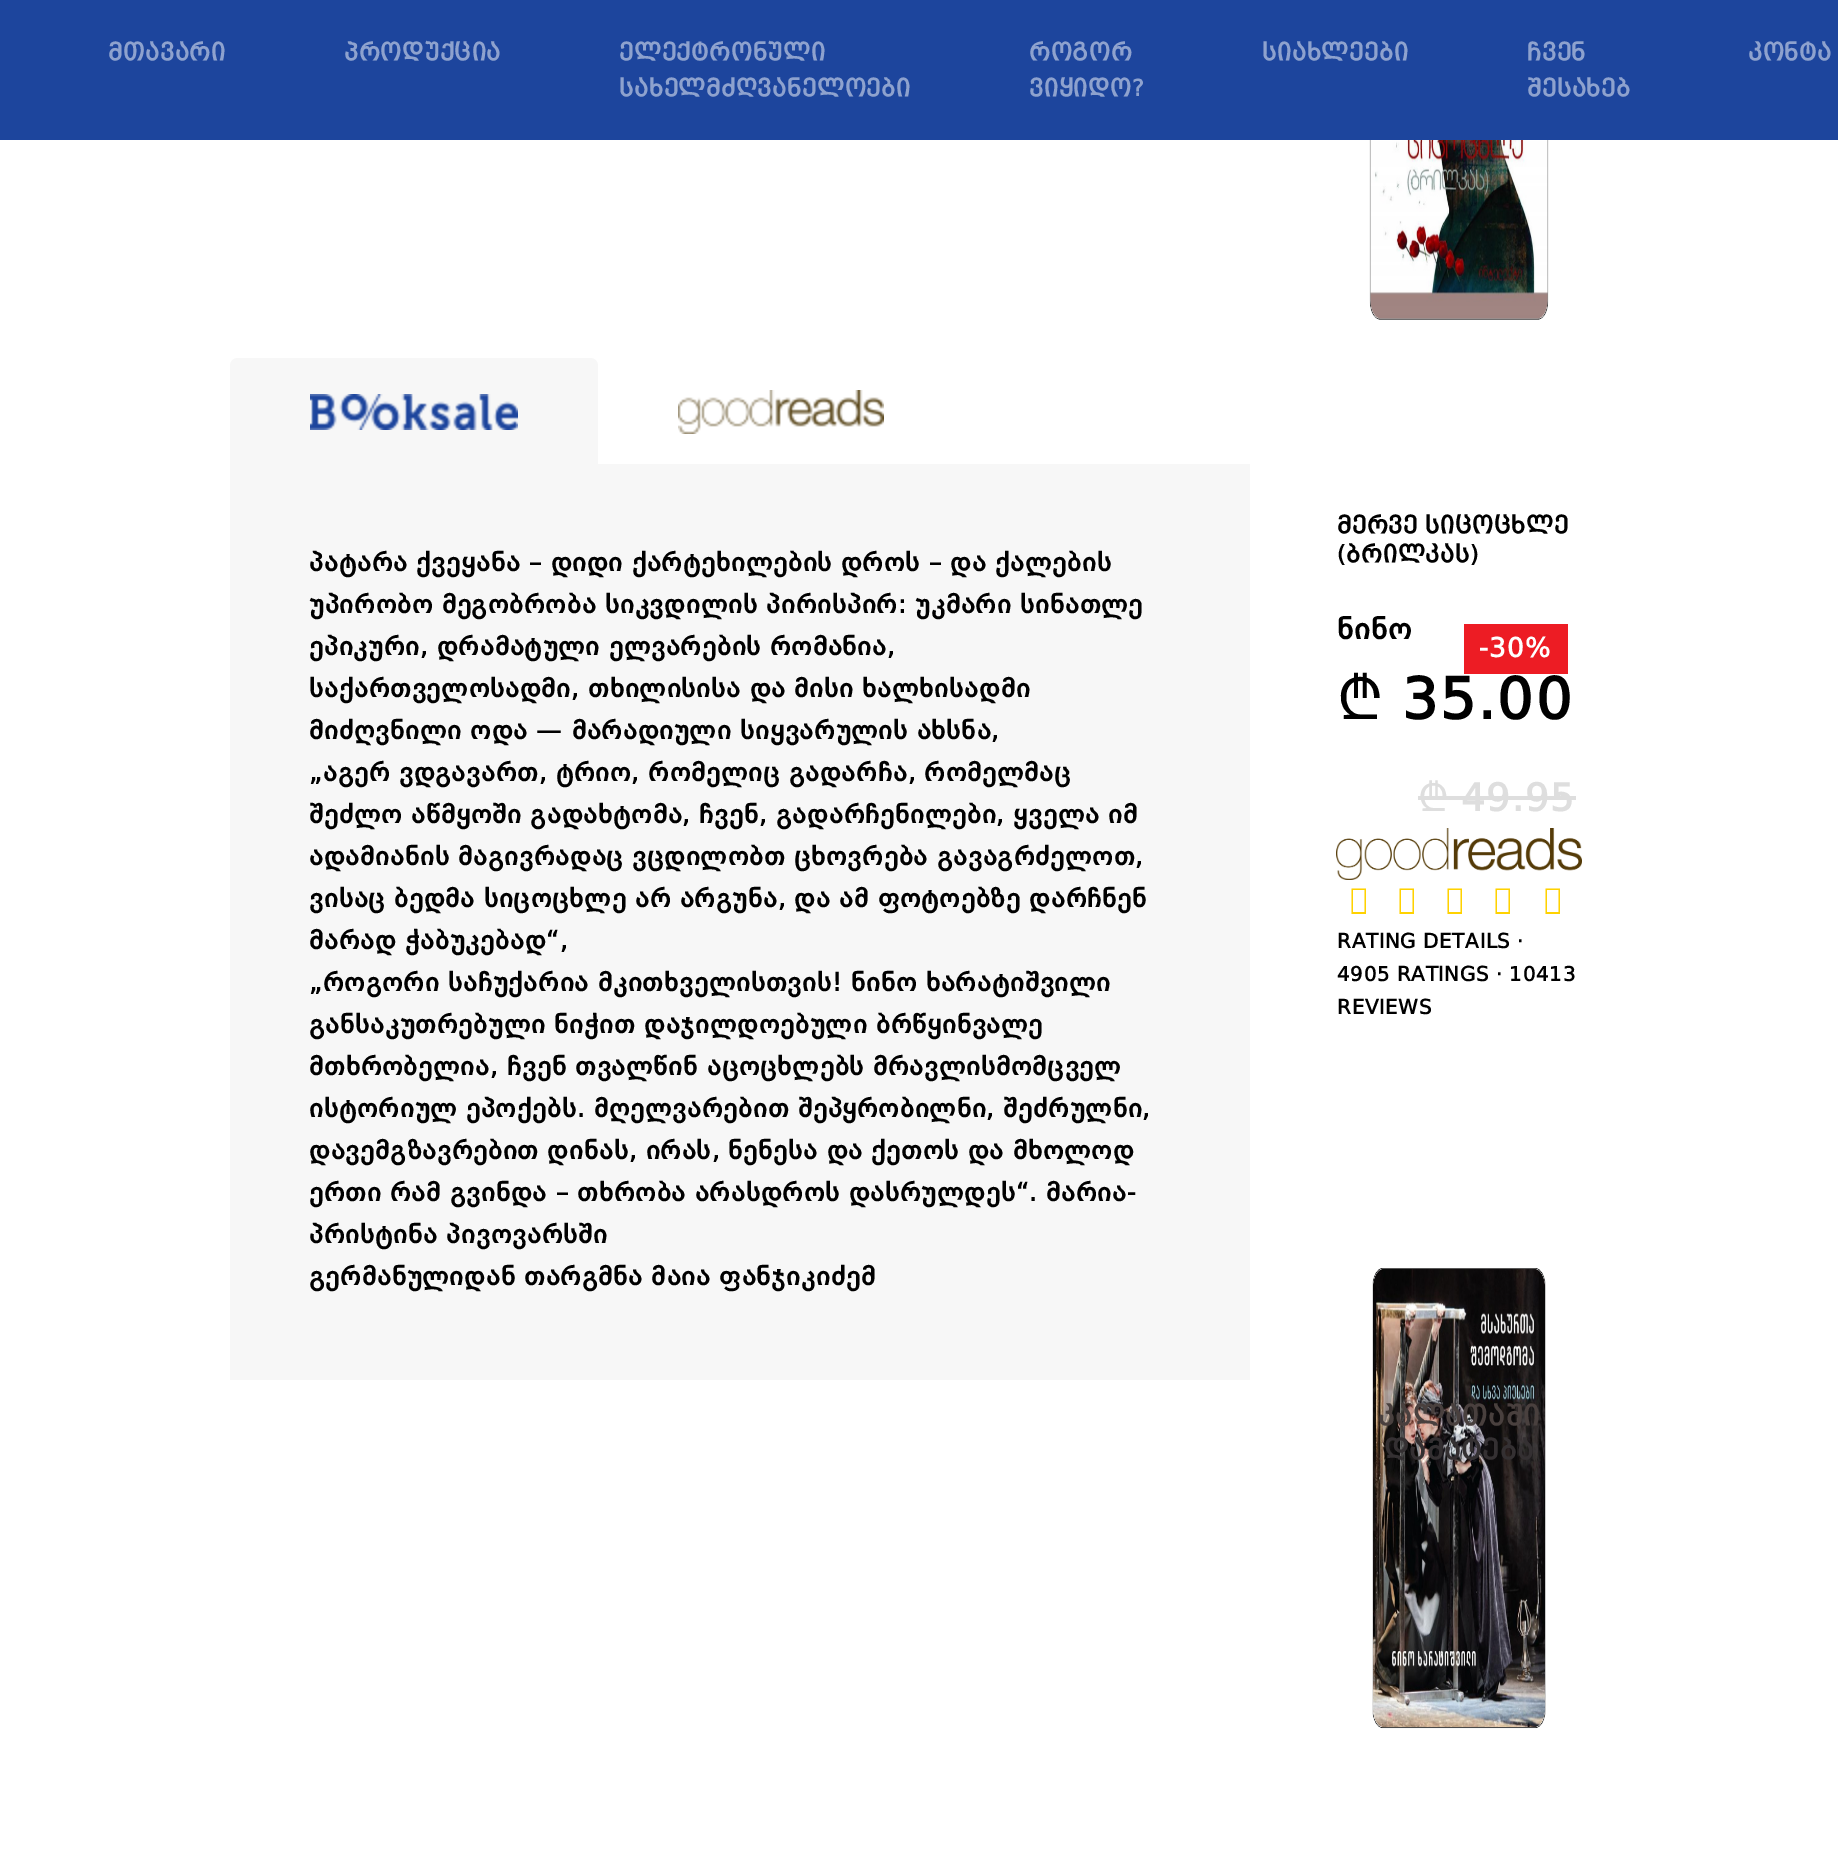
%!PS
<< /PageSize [1838 1857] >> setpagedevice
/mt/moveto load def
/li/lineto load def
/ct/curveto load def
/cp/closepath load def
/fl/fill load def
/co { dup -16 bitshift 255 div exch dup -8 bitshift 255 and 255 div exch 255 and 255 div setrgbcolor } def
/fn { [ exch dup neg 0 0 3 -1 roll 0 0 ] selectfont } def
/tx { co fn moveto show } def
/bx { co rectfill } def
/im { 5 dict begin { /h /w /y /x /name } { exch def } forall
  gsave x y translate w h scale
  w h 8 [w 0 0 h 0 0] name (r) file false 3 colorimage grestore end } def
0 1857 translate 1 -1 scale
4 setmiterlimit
0 0 1838 1857 16#FFFFFF bx
0 0 1838 140 16#1D459D bx
230 464 1020 916 16#F7F7F7 bx
238 358 mt 590 358 li 594.5 358 598 361.5 598 366 ct 598 466 li 230 466 li 230 366 li 230 361.5 233.5 358 238 358 ct cp fl
(media/1.raw) 310 394 208 36 im
(media/2.raw) 678 390 206 44 im
(media/3.raw) 1369 140 180 180 im
1464 624 104 50 16#ED1C24 bx
1418 796 158 4 16#DEDEDE bx
(media/4.raw) 1336 828 246 52 im
16#FFD200 co
1351.5 914 mt 1351.5 888.5 li 1366 888.5 li 1366 914 li cp 1353 912 mt 1364.5 912 li 1364.5 890 li 1353 890 li cp 1399.5 914 mt 1399.5 888.5 li 1414 888.5 li 1414 914 li cp 1401 912 mt 1412.5 912 li 1412.5 890 li 1401 890 li cp fl
1447.5 914 mt 1447.5 888.5 li 1462 888.5 li 1462 914 li cp 1449 912 mt 1460.5 912 li 1460.5 890 li 1449 890 li cp 1495.5 914 mt 1495.5 888.5 li 1510 888.5 li 1510 914 li cp 1497 912 mt 1508.5 912 li 1508.5 890 li 1497 890 li cp fl
1545.5 914 mt 1545.5 888.5 li 1560 888.5 li 1560 914 li cp 1547 912 mt 1558.5 912 li 1558.5 890 li 1547 890 li cp fl
(media/5.raw) 1372 1268 174 461 im
(მთავარი) 108 60 /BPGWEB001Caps-Regular 24 16#8EA2CE tx
(პროდუქცია) 344 60 /BPGWEB001Caps-Regular 24 16#8EA2CE tx
(ელექტრონული) 619 60 /BPGWEB001Caps-Regular 24 16#8EA2CE tx
(სახელმძღვანელოები) 619 96 /BPGWEB001Caps-Regular 24 16#8EA2CE tx
(როგორ) 1029 60 /BPGWEB001Caps-Regular 24 16#8EA2CE tx
(ვიყიდო?) 1029 96 /BPGWEB001Caps-Regular 24 16#8EA2CE tx
(სიახლეები) 1262 60 /BPGWEB001Caps-Regular 24 16#8EA2CE tx
(ჩვენ) 1527 60 /BPGWEB001Caps-Regular 24 16#8EA2CE tx
(შესახებ) 1527 96 /BPGWEB001Caps-Regular 24 16#8EA2CE tx
(კონტა) 1748 60 /BPGWEB001Caps-Regular 24 16#8EA2CE tx
(პატარა ქვეყანა – დიდი ქარტეხილების დროს – და ქალების) 309 571 /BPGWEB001-Regular 28 16#000000 tx
(უპირობო მეგობრობა სიკვდილის პირისპირ: უკმარი სინათლე) 309 613 /BPGWEB001-Regular 28 16#000000 tx
(ეპიკური, დრამატული ელვარების რომანია,) 309 655 /BPGWEB001-Regular 28 16#000000 tx
(საქართველოსადმი, თხილისისა და მისი ხალხისადმი) 309 697 /BPGWEB001-Regular 28 16#000000 tx
(მიძღვნილი ოდა — მარადიული სიყვარულის ახსნა,) 309 739 /BPGWEB001-Regular 28 16#000000 tx
(„აგერ ვდგავართ, ტრიო, რომელიც გადარჩა, რომელმაც) 309 781 /BPGWEB001-Regular 28 16#000000 tx
(შეძლო აწმყოში გადახტომა, ჩვენ, გადარჩენილები, ყველა იმ) 309 823 /BPGWEB001-Regular 28 16#000000 tx
(ადამიანის მაგივრადაც ვცდილობთ ცხოვრება გავაგრძელოთ,) 309 865 /BPGWEB001-Regular 28 16#000000 tx
(ვისაც ბედმა სიცოცხლე არ არგუნა, და ამ ფოტოებზე დარჩნენ) 309 907 /BPGWEB001-Regular 28 16#000000 tx
(მარად ჭაბუკებად“,) 309 949 /BPGWEB001-Regular 28 16#000000 tx
(„როგორი საჩუქარია მკითხველისთვის! ნინო ხარატიშვილი) 309 991 /BPGWEB001-Regular 28 16#000000 tx
(განსაკუთრებული ნიჭით დაჯილდოებული ბრწყინვალე) 309 1033 /BPGWEB001-Regular 28 16#000000 tx
(მთხრობელია, ჩვენ თვალწინ აცოცხლებს მრავლისმომცველ) 309 1075 /BPGWEB001-Regular 28 16#000000 tx
(ისტორიულ ეპოქებს. მღელვარებით შეპყრობილნი, შეძრულნი,) 309 1117 /BPGWEB001-Regular 28 16#000000 tx
(დავემგზავრებით დინას, ირას, ნენესა და ქეთოს და მხოლოდ) 309 1159 /BPGWEB001-Regular 28 16#000000 tx
(ერთი რამ გვინდა – თხრობა არასდროს დასრულდეს“. მარია-) 309 1201 /BPGWEB001-Regular 28 16#000000 tx
(პრისტინა პივოვარსში) 309 1243 /BPGWEB001-Regular 28 16#000000 tx
(გერმანულიდან თარგმნა მაია ფანჯიკიძემ) 309 1285 /BPGWEB001-Regular 28 16#000000 tx
(მერვე სიცოცხლე) 1337 533 /BPGWEB001Caps-Regular 24 16#000000 tx
(\(ბრილკას\)) 1337 562 /BPGWEB001Caps-Regular 24 16#000000 tx
(ნინო) 1337 639 /BPGWEB001-Regular 32 16#000000 tx
(-30%) 1479 657 /BPGWEB001Caps-Regular 28 16#FFFFFF tx
(₾) 1337 719 /NotoSans-Regular 60 16#000000 tx
(35.00) 1402 719 /BPGWEB001Caps-Regular 60 16#000000 tx
(₾) 1418 811 /NotoSans-Regular 40 16#DEDEDE tx
(49.95) 1461 811 /BPGWEB001Caps-Regular 40 16#DEDEDE tx
(RATING DETAILS ·) 1337 948 /BPGWEB001-Regular 22 16#000000 tx
(4905 RATINGS · 10413) 1337 981 /BPGWEB001-Regular 22 16#000000 tx
(REVIEWS) 1337 1014 /BPGWEB001-Regular 22 16#000000 tx
(კალათაში) 1378 1425 /BPGWEB001Caps-Regular 28 16#49403E tx
(დამატება) 1384 1459 /BPGWEB001Caps-Regular 28 16#343032 tx
showpage
